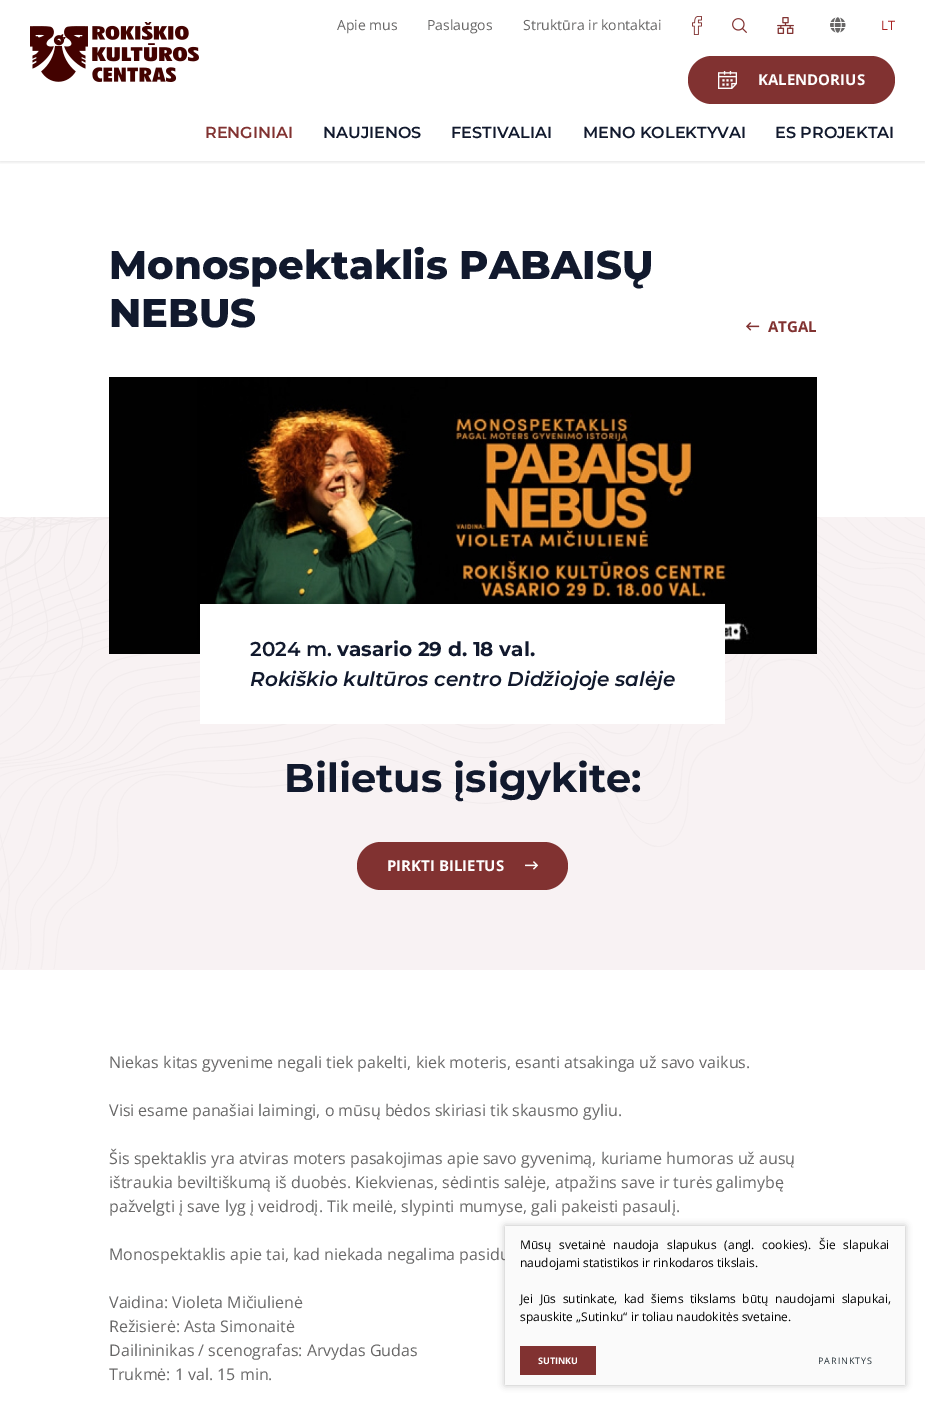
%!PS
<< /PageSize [925 1405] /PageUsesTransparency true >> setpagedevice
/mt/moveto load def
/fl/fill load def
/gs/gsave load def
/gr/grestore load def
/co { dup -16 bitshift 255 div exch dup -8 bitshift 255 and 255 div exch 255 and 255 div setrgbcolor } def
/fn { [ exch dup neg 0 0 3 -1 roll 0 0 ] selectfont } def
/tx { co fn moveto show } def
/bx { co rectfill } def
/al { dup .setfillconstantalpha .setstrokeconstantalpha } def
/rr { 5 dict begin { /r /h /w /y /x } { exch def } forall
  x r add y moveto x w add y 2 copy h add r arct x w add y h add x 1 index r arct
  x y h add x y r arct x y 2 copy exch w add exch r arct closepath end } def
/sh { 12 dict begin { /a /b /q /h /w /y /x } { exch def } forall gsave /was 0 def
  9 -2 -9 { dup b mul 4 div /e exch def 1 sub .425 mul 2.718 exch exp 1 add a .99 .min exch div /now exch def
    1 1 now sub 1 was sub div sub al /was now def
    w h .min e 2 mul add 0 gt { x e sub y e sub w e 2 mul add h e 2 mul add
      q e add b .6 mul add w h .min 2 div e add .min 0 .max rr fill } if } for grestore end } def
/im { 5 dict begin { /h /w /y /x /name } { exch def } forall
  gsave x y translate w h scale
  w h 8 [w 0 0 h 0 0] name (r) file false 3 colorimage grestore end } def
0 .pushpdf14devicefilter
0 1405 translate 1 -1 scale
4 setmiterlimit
0 0 925 1405 16#FFFFFF bx
gs
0 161 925 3 rectclip
16#000000 co
0 0 925 161 0 2.5 .15 sh
gr
(media/1.raw) 30 22 169 60 im
(media/2.raw) 692 16 10 19 im
(media/3.raw) 732 18 15 15 im
(media/4.raw) 777 17 17 17 im
(media/5.raw) 830 17 16 16 im
16#813231 co
688 56 207 48 24 rr fl
(media/6.raw) 718 71 19 18 im
(media/7.raw) 746 322 14 9 im
0 517 925 453 16#F8F2F3 bx
(media/8.raw) 0 517 925 452 im
(media/9.raw) 109 377 708 277 im
200 604 525 120 16#FFFFFF bx
16#813231 co
357 842 211 48 24 rr fl
(media/10.raw) 525 861 14 9 im
16#000000 co
505 1226 400 159 0 3.5 .25 sh
(Apie mus) 337 30 /OpenSans-Regular 14 16#686767 tx
(Paslaugos) 427 30 /OpenSans-Regular 14 16#686767 tx
(Struktūra ir kontaktai) 523 30 /OpenSans-Regular 14 16#686767 tx
(LT) 881 30 /OpenSans-Regular 13 16#A92120 tx
(KALENDORIUS) 758 85 /OpenSans-Bold 15 16#FEFDFD tx
(RENGINIAI) 205 138 /Montserrat-SemiBold 16 16#813231 tx
(NAUJIENOS) 323 138 /Montserrat-SemiBold 16 16#11192D tx
(FESTIVALIAI) 451 138 /Montserrat-SemiBold 16 16#11192D tx
(MENO KOLEKTYVAI) 583 138 /Montserrat-SemiBold 16 16#11192D tx
(ES PROJEKTAI) 775 138 /Montserrat-SemiBold 16 16#11192D tx
(Monospektaklis PABAISŲ) 109 279 /Montserrat-ExtraBold 40 16#11192D tx
(NEBUS) 109 327 /Montserrat-ExtraBold 40 16#11192D tx
(ATGAL) 768 332 /OpenSans-Bold 15 16#813231 tx
(2024 m.) 250 656 /Montserrat-SemiBold 20 16#11192D tx
(vasario 29 d. 18 val.) 337 656 /Montserrat-Bold 20 16#11192D tx
(Rokiškio kultūros centro Didžiojoje salėje) 250 686 /Montserrat-SemiBoldItalic 20 16#11192D tx
(Bilietus įsigykite:) 284 792 /Montserrat-Bold 40 16#11192D tx
(PIRKTI BILIETUS) 387 871 /OpenSans-Bold 15 16#FEFDFD tx
(Niekas kitas gyvenime negali tiek pakelti, kiek moteris, esanti atsakinga už savo vaikus.) 109 1068 /OpenSans-Regular 16 16#686767 tx
(Visi esame panašiai laimingi, o mūsų bėdos skiriasi tik skausmo gyliu.) 109 1116 /OpenSans-Regular 16 16#686767 tx
(Šis spektaklis yra atviras moters pasakojimas apie savo gyvenimą, kuriame humoras už ausų) 109 1164 /OpenSans-Regular 16 16#686767 tx
(ištraukia beviltiškumą iš duobės. Kiekvienas, sėdintis salėje, atpažins save ir turės galimybę) 109 1188 /OpenSans-Regular 16 16#686767 tx
(pažvelgti į save lyg į veidrodį. Tik meilė, slypinti mumyse, gali pakeisti pasaulį.) 109 1212 /OpenSans-Regular 16 16#686767 tx
(Monospektaklis apie tai, kad niekada negalima pasidu) 109 1260 /OpenSans-Regular 16 16#686767 tx
(Vaidina: Violeta Mičiulienė) 109 1308 /OpenSans-Regular 16 16#686767 tx
(Režisierė: Asta Simonaitė) 109 1332 /OpenSans-Regular 16 16#686767 tx
(Dailininikas / scenografas: Arvydas Gudas) 109 1356 /OpenSans-Regular 16 16#686767 tx
(Trukmė: 1 val. 15 min.) 109 1380 /OpenSans-Regular 16 16#686767 tx
505 1226 400 159 16#FAFAFA bx
/OpenSans-Regular 12 fn
16#000000 co
520 1249 mt 4.75 0 32 (Mūsų svetainė naudoja slapukus \(angl. cookies\). Šie slapukai) widthshow
(naudojami statistikos ir rinkodaros tikslais.) 520 1267 /OpenSans-Regular 12 16#000000 tx
520 1303 mt 3.5 0 32 (Jei Jūs sutinkate, kad šiems tikslams būtų naudojami slapukai,) widthshow
(spauskite „Sutinku“ ir toliau naudokitės svetaine.) 520 1321 /OpenSans-Regular 12 16#000000 tx
520 1346 76 29 16#813231 bx
(SUTINKU) 538 1364 /OpenSans-Bold 9 16#FEFDFD tx
/OpenSans-Regular 9 fn
16#263238 co
818 1364 mt 1 0 (PARINKTYS) ashow
.poppdf14devicefilter showpage
